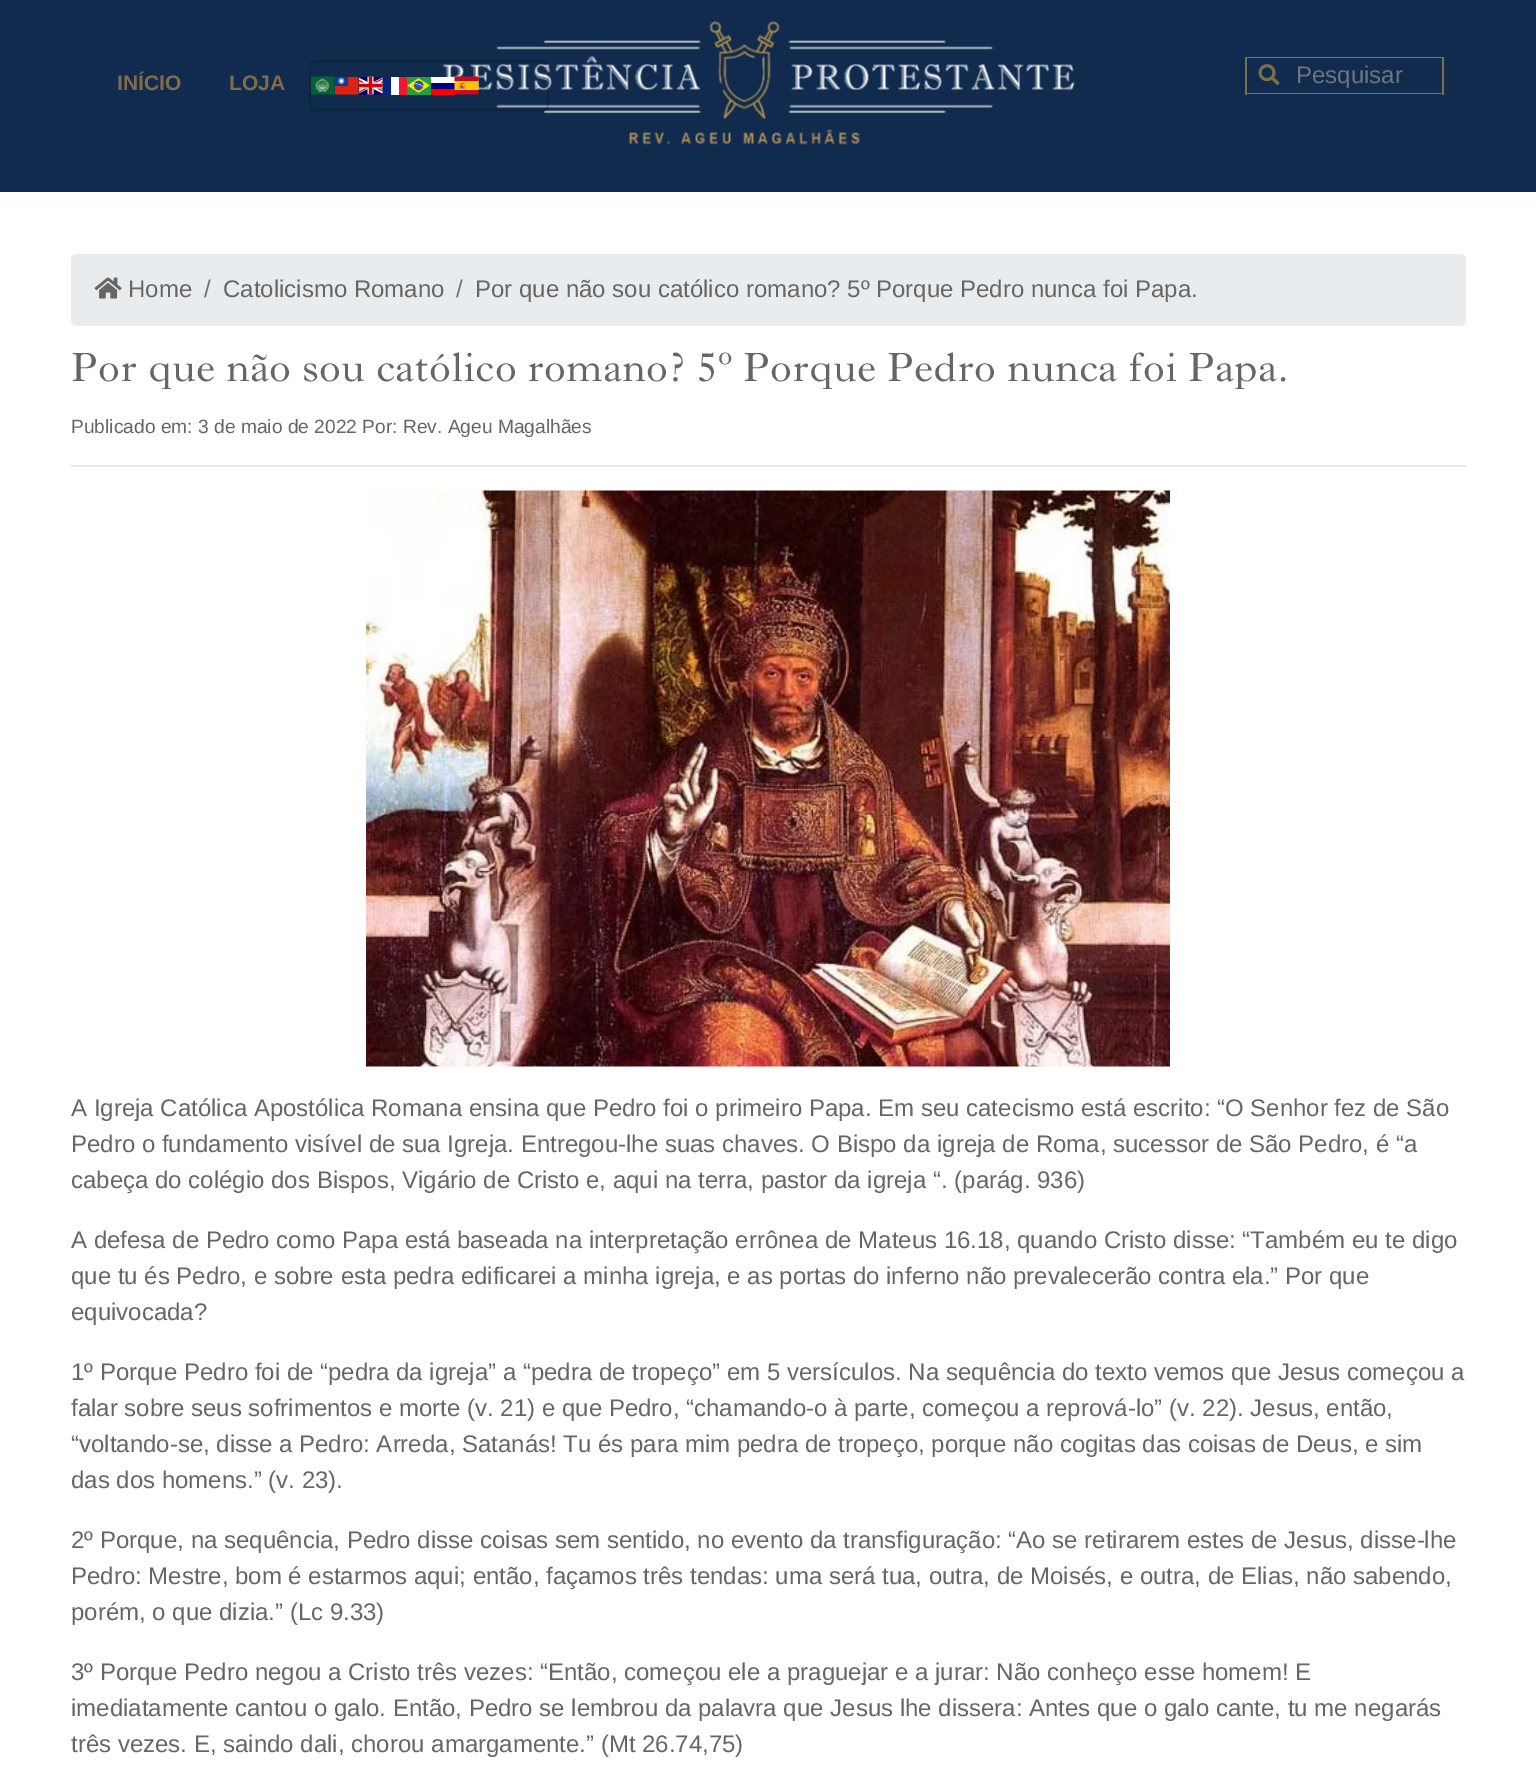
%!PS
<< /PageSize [1536 1774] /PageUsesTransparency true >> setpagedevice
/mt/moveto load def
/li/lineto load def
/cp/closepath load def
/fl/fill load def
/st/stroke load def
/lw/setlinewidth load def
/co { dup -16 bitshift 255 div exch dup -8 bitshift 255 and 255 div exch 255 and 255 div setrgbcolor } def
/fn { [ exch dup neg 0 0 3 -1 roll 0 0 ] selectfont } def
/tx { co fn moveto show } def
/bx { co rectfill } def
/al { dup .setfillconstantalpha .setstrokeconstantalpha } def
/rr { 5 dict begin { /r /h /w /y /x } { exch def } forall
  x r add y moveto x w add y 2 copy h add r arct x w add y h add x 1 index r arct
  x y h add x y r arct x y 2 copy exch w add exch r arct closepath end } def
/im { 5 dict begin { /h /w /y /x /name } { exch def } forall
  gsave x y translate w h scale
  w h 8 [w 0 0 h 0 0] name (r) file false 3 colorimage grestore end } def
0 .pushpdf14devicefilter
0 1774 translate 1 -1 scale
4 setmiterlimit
0 0 1536 1774 16#FFFFFF bx
0 0 1536 192 16#102B4E bx
(media/6.raw) 442 21 633 124 im
0.15 al
16#000000 co
2 lw
310 61 238 49 5 rr st
1 al
(media/1.raw) 311 76 24 19 im
(media/2.raw) 335 77 24 18 im
(media/3.raw) 359 76 24 19 im
383 77 8 18 16#00267F bx
391 77 8 18 16#FFFFFF bx
399 77 8 18 16#F31830 bx
(media/4.raw) 407 77 24 18 im
431 77 24 6 16#FFFFFF bx
431 83 24 6 16#01017E bx
431 89 24 6 16#FE0101 bx
(media/5.raw) 454 76 25 19 im
16#7E6D46 co
1245 57 mt 1293 57 li 1292 58 li 1246 58 li cp 1293 94 mt 1245 94 li 1246 93 li 1292 93 li cp fl
1245 57 2 38 16#7E6D46 bx
(media/7.raw) 1258 64 22 22 im
1288 57 mt 1443 57 li 1442 58 li 1290 58 li cp fl
1442 57 2 38 16#7E6D46 bx
1443 94 mt 1288 94 li 1290 93 li 1442 93 li cp fl
16#E9ECEF co
71 254 1395 72 6 rr fl
(media/8.raw) 94 277 28 22 im
71 465 1395 2 16#E6E6E6 bx
(media/9.raw) 366 490 804 577 im
(INÍCIO) 117 90 /LiberationSans-Bold 21 16#7E6D46 tx
(LOJA) 229 90 /LiberationSans-Bold 21 16#7E6D46 tx
(Pesquisar) 1296 83 /LiberationSans-Regular 24 16#6C757D tx
(Home) 128 297 /LiberationSans-Regular 24 16#666666 tx
(/) 204 297 /LiberationSans-Regular 24 16#6C757D tx
(Catolicismo Romano) 223 297 /LiberationSans-Regular 24 16#666666 tx
(/) 456 297 /LiberationSans-Regular 24 16#6C757D tx
(Por que não sou católico romano? 5º Porque Pedro nunca foi Papa.) 475 297 /LiberationSans-Regular 24 16#666666 tx
(Por que não sou católico romano? 5º Porque Pedro nunca foi Papa.) 71 381 /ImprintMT-Regular 42 16#666666 tx
(Publicado em: 3 de maio de 2022 Por: Rev. Ageu Magalhães) 71 433 /LiberationSans-Regular 19.2 16#666666 tx
(A Igreja Católica Apostólica Romana ensina que Pedro foi o primeiro Papa. Em seu catecismo está escrito: “O Senhor fez de São) 71 1116 /LiberationSans-Regular 24 16#666666 tx
(Pedro o fundamento visível de sua Igreja. Entregou-lhe suas chaves. O Bispo da igreja de Roma, sucessor de São Pedro, é “a) 71 1152 /LiberationSans-Regular 24 16#666666 tx
(cabeça do colégio dos Bispos, Vigário de Cristo e, aqui na terra, pastor da igreja “. \(parág. 936\)) 71 1188 /LiberationSans-Regular 24 16#666666 tx
(A defesa de Pedro como Papa está baseada na interpretação errônea de Mateus 16.18, quando Cristo disse: “Também eu te digo) 71 1248 /LiberationSans-Regular 24 16#666666 tx
(que tu és Pedro, e sobre esta pedra edificarei a minha igreja, e as portas do inferno não prevalecerão contra ela.” Por que) 71 1284 /LiberationSans-Regular 24 16#666666 tx
(equivocada?) 71 1320 /LiberationSans-Regular 24 16#666666 tx
(1º Porque Pedro foi de “pedra da igreja” a “pedra de tropeço” em 5 versículos. Na sequência do texto vemos que Jesus começou a) 71 1380 /LiberationSans-Regular 24 16#666666 tx
(falar sobre seus sofrimentos e morte \(v. 21\) e que Pedro, “chamando-o à parte, começou a reprová-lo” \(v. 22\). Jesus, então,) 71 1416 /LiberationSans-Regular 24 16#666666 tx
(“voltando-se, disse a Pedro: Arreda, Satanás! Tu és para mim pedra de tropeço, porque não cogitas das coisas de Deus, e sim) 71 1452 /LiberationSans-Regular 24 16#666666 tx
(das dos homens.” \(v. 23\).) 71 1488 /LiberationSans-Regular 24 16#666666 tx
(2º Porque, na sequência, Pedro disse coisas sem sentido, no evento da transfiguração: “Ao se retirarem estes de Jesus, disse-lhe) 71 1548 /LiberationSans-Regular 24 16#666666 tx
(Pedro: Mestre, bom é estarmos aqui; então, façamos três tendas: uma será tua, outra, de Moisés, e outra, de Elias, não sabendo,) 71 1584 /LiberationSans-Regular 24 16#666666 tx
(porém, o que dizia.” \(Lc 9.33\)) 71 1620 /LiberationSans-Regular 24 16#666666 tx
(3º Porque Pedro negou a Cristo três vezes: “Então, começou ele a praguejar e a jurar: Não conheço esse homem! E) 71 1680 /LiberationSans-Regular 24 16#666666 tx
(imediatamente cantou o galo. Então, Pedro se lembrou da palavra que Jesus lhe dissera: Antes que o galo cante, tu me negarás) 71 1716 /LiberationSans-Regular 24 16#666666 tx
(três vezes. E, saindo dali, chorou amargamente.” \(Mt 26.74,75\)) 71 1752 /LiberationSans-Regular 24 16#666666 tx
.poppdf14devicefilter showpage
